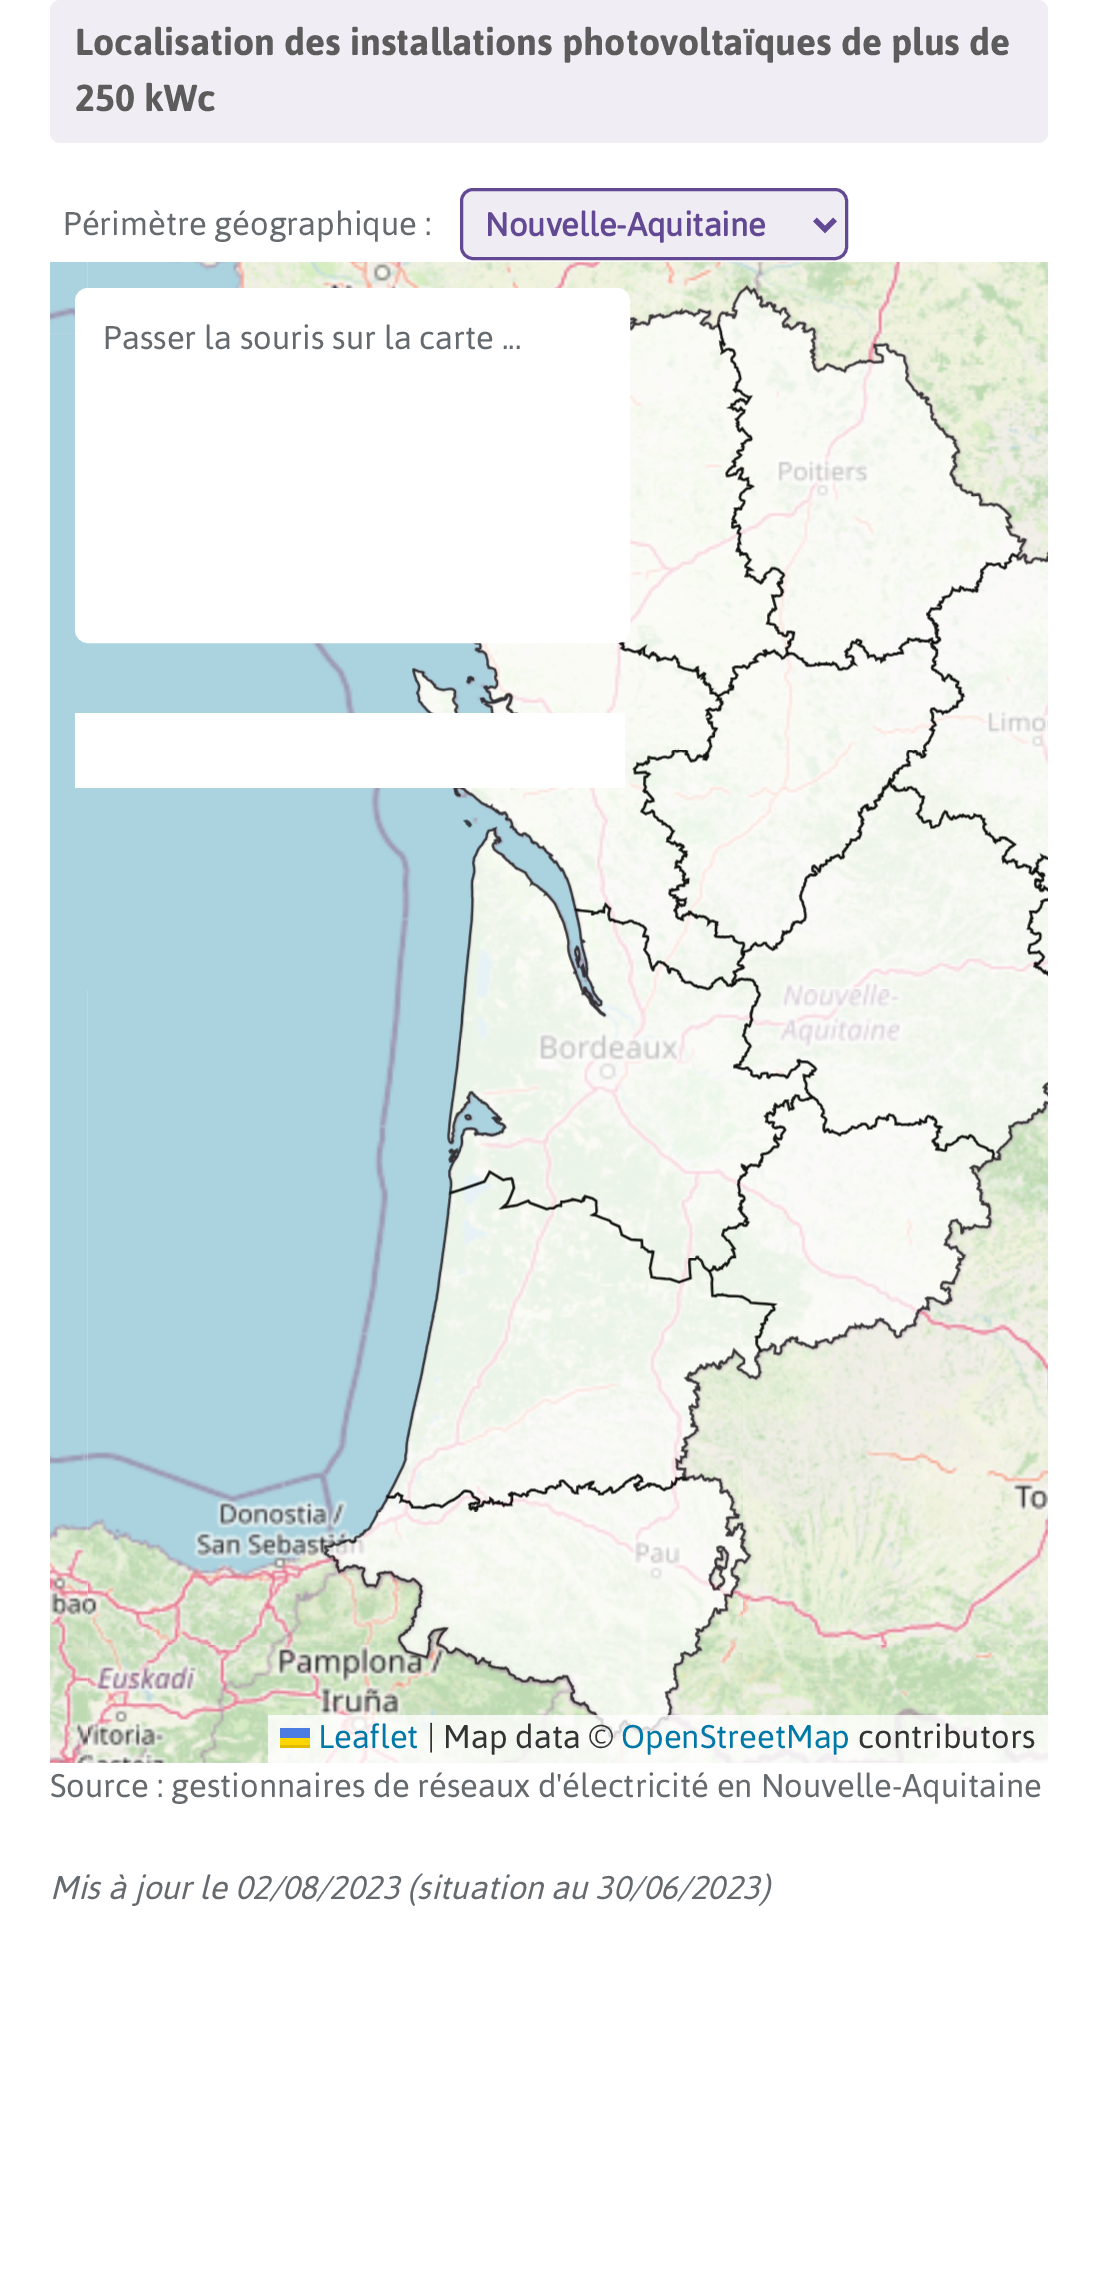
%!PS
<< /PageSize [1097 2272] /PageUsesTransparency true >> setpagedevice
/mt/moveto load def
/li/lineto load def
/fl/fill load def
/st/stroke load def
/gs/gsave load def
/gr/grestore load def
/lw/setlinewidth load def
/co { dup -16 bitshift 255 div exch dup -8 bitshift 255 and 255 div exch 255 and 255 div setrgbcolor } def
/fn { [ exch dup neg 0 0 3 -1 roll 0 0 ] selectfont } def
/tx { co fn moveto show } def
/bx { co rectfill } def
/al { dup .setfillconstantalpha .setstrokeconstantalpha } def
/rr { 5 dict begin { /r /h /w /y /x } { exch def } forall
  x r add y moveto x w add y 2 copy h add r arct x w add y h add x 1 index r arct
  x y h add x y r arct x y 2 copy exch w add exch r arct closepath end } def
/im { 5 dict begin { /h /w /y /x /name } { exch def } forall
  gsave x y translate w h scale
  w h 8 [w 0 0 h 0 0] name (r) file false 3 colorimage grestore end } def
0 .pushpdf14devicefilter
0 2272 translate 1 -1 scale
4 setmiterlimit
0 0 1097 2272 16#FFFFFF bx
16#F0EDF5 co
50 0 998 143 10 rr fl
16#EFECF4 co
461.5 189.5 385 69 11.5 rr gs fl gr
16#634993 co
3 lw
st
5 lw
815 219.5 mt 825 229.5 li 835 219.5 li st
50 263 998 1500 16#DDDDDD bx
(media/1.raw) 50 262 38 72 im
(media/4.raw) 88 334 655 656 im
(media/5.raw) 743 334 305 655 im
(media/2.raw) 88 262 656 73 im
(media/3.raw) 743 262 305 73 im
50 334 38 656 16#AAD3DF bx
(media/6.raw) 50 990 38 655 im
(media/7.raw) 88 989 656 656 im
(media/8.raw) 743 989 305 656 im
(media/9.raw) 50 1645 38 118 im
(media/10.raw) 88 1645 655 118 im
(media/11.raw) 743 1645 305 118 im
(media/12.raw) 323 284 725 1456 im
16#FFFFFF co
76.5 289.5 552 352 11.5 rr gs fl gr
3 lw
st
75 713 550 75 16#FFFFFF bx
0.8 al
268 1715 780 48 16#FFFFFF bx
1 al
280 1728 30 10 16#4C7BE1 bx
280 1738 30 7 16#FFD500 bx
280 1745 30 3 16#E0BC00 bx
(Localisation des installations photovoltaïques de plus de) 75 55 /Asap-Bold 37.5 16#5D5C5C tx
(250 kWc) 75 111 /Asap-Bold 37.5 16#5D5C5C tx
(Périmètre géographique :) 63 235 /Asap-Regular 32.8 16#656A6E tx
(Nouvelle-Aquitaine) 485 236 /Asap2-Bold 32.8 16#634993 tx
(Passer la souris sur la carte ...) 103 349 /Asap-Regular 32.8 16#656A6E tx
(Leaflet) 318 1748 /Asap-Regular 32.8 16#0078A8 tx
(| Map data ©) 427 1748 /Asap-Regular 32.8 16#333333 tx
(OpenStreetMap) 621 1748 /Asap-Regular 32.8 16#0078A8 tx
(contributors) 858 1748 /Asap-Regular 32.8 16#333333 tx
(Source : gestionnaires de réseaux d'électricité en Nouvelle-Aquitaine) 50 1797 /Asap-Regular 32.8 16#656A6E tx
(Mis à jour le 02/08/2023 \(situation au 30/06/2023\)) 50 1899 /Asap-Italic 32.8 16#656A6E tx
.poppdf14devicefilter showpage
